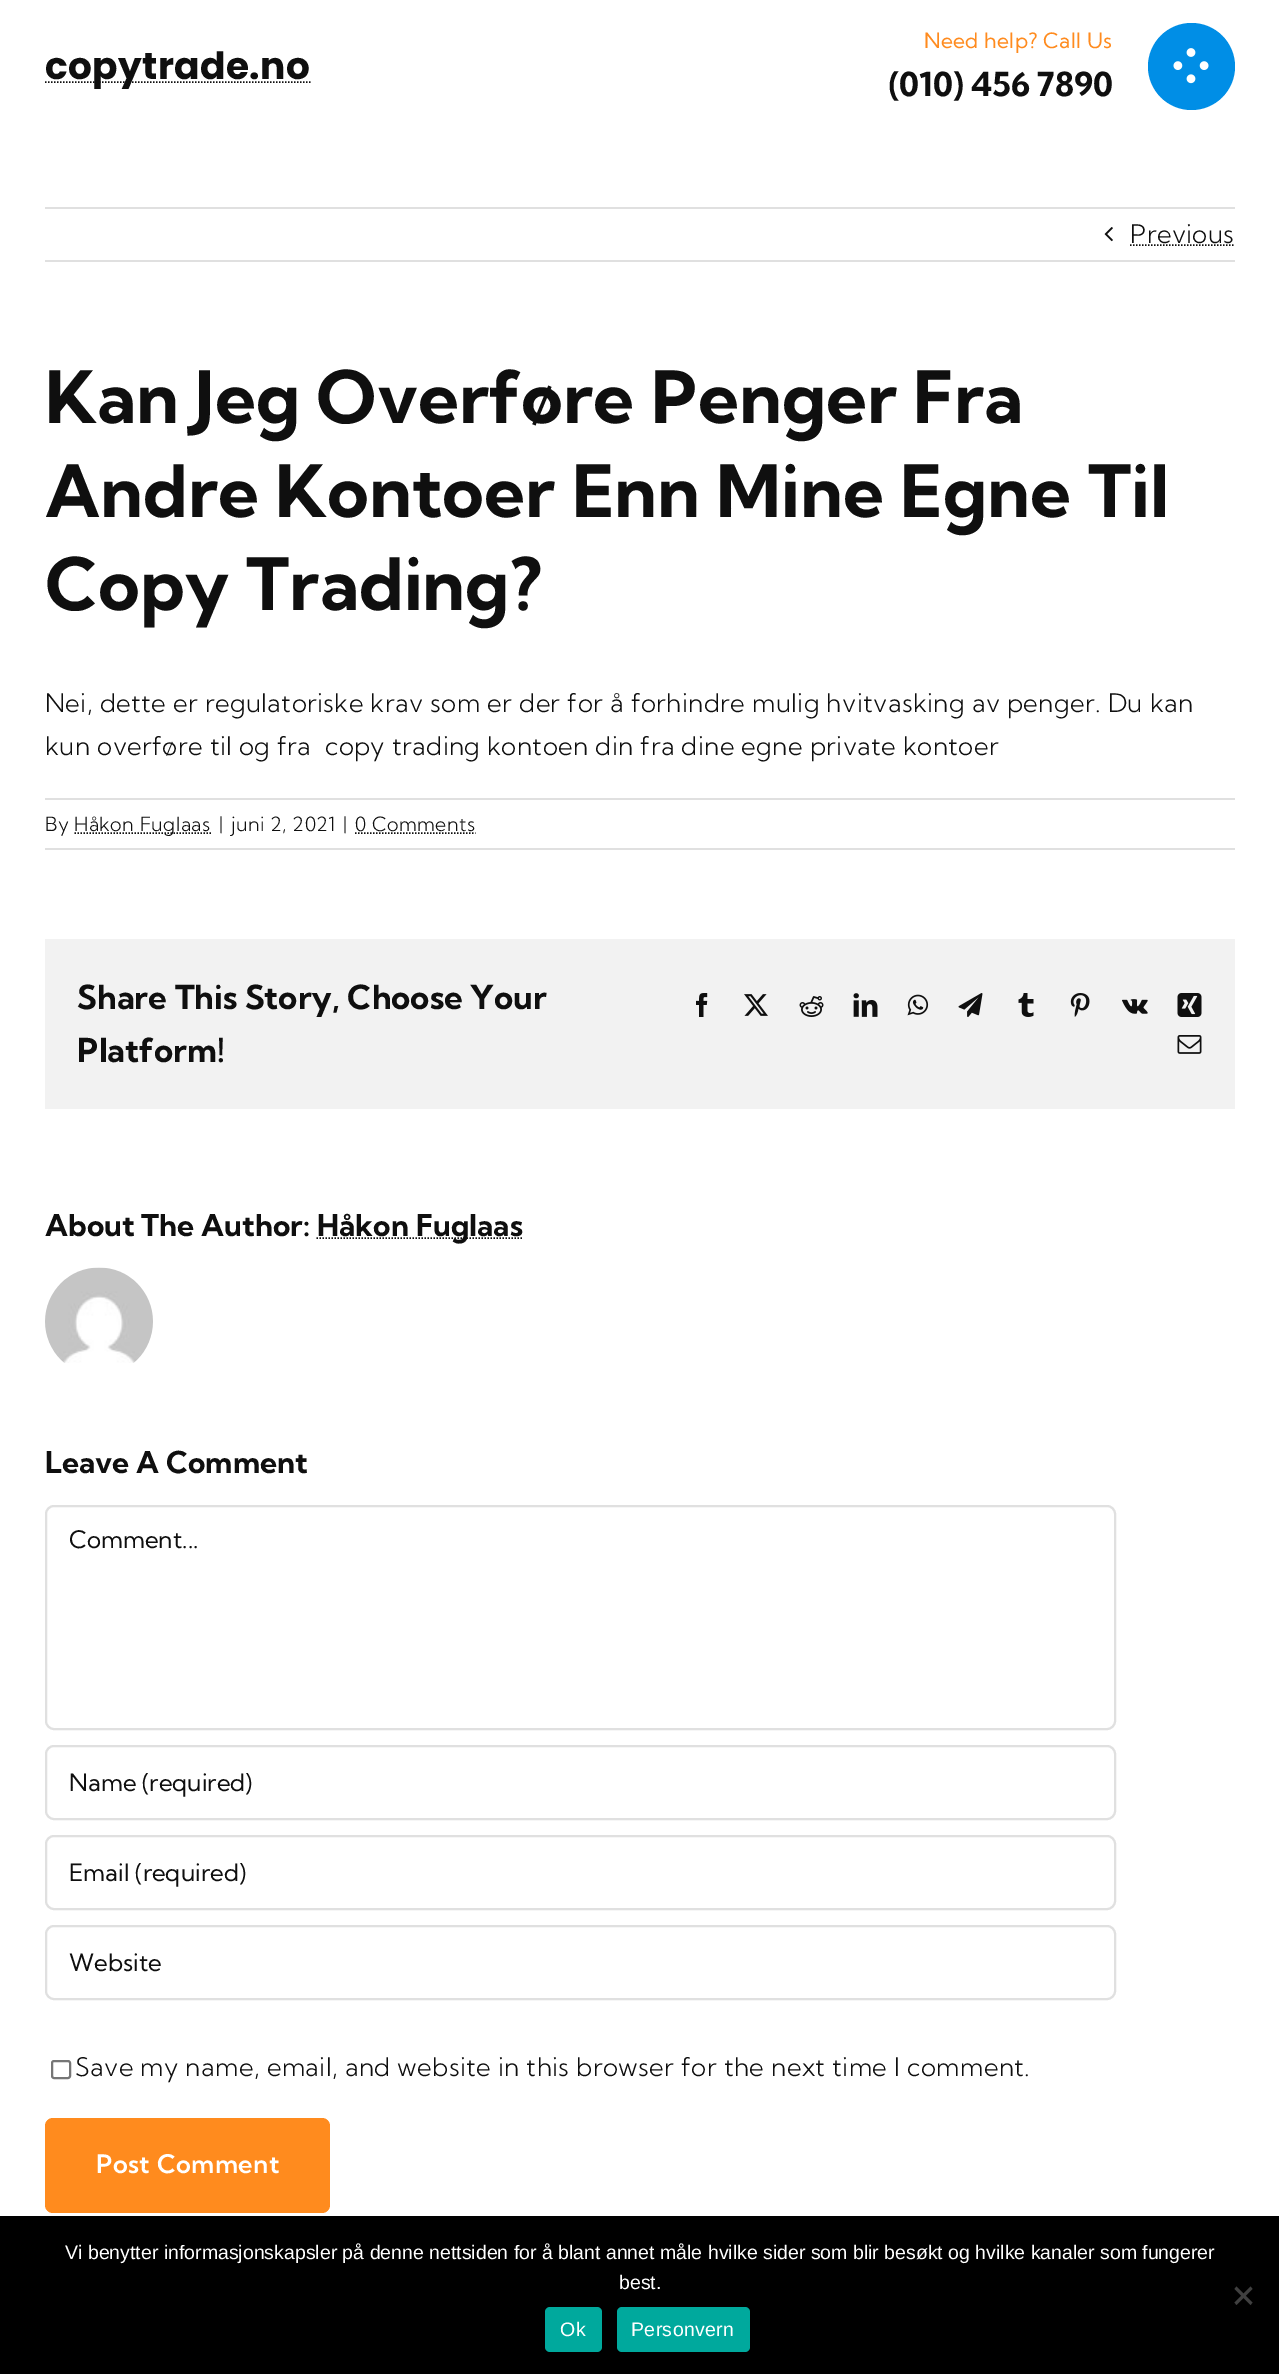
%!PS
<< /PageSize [1279 2374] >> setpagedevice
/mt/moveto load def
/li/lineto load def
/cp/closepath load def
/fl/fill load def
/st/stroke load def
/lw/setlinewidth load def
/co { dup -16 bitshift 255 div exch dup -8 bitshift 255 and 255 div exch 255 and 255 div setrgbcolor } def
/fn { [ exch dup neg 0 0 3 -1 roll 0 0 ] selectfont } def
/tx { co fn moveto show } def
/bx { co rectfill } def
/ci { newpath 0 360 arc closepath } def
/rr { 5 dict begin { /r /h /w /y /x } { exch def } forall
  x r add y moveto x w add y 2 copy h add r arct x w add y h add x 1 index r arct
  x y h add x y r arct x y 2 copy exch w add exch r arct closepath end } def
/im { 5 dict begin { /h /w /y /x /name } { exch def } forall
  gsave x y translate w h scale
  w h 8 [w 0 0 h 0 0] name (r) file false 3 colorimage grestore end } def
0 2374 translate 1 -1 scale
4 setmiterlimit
0 0 1279 2374 16#FFFFFF bx
16#0F0F0F co
1.5 lw
[1.5 1.5] 0 setdash
45 82 mt 310.5 82 li st
16#008EE6 co
1191.5 66.5 43.5 ci fl
(media/1.raw) 1173 48 36 36 im
45 207 1190 2 16#E0E0E0 bx
45 260 1190 2 16#E0E0E0 bx
(media/2.raw) 1104 227 9 15 im
16#0F0F0F co
1130 245 mt 1234.5 245 li st
45 798 1190 2 16#E0E0E0 bx
45 848 1190 2 16#E0E0E0 bx
16#0F0F0F co
74.5 833 mt 211 833 li st
355 833 mt 475.5 833 li st
45 939 1190 170 16#F2F2F2 bx
(media/3.raw) 696 993 12 24 im
(media/4.raw) 744 994 24 22 im
(media/5.raw) 799 996 25 21 im
(media/6.raw) 853 993 25 24 im
(media/7.raw) 907 994 22 22 im
(media/8.raw) 958 993 25 24 im
(media/9.raw) 1018 993 16 24 im
(media/10.raw) 1070 993 20 24 im
(media/11.raw) 1122 999 26 15 im
(media/12.raw) 1177 993 25 24 im
(media/13.raw) 1177 1035 25 19 im
16#0F0F0F co
316.5 1238 mt 522.5 1238 li st
(media/14.raw) 45 1267 108 96 im
16#E0E0E0 co
2 lw
[] 0 setdash
46 1506 1069 223 8 rr st
46 1746 1069 73 8 rr st
46 1836 1069 73 8 rr st
46 1926 1069 73 8 rr st
16#767676 co
52 2061 18 17 2 rr st
16#FF8B1E co
45 2118 285 95 8 rr fl
0 2216 1279 158 16#000000 bx
16#404040 co
1250.5 2286.5 mt 1252.5 2289 li 1236.5 2305 li 1234.5 2302.5 li cp fl
1234.5 2289 mt 1236.5 2286.5 li 1252.5 2302.5 li 1250.5 2305 li cp fl
16#00A99D co
545 2307 57 45 5 rr fl
617 2307 133 45 5 rr fl
/Poppins-Bold 37.5 fn
16#0F0F0F co
45 79 mt .38 0 (copytrade.no) ashow
/KumbhSans-Regular 21 fn
16#FF8B1E co
924 48 mt .3 0 (Need help? Call Us) ashow
(\(010\) 456 7890) 889 96 /KumbhSans-Bold 33 16#0F0F0F tx
/KumbhSans-Light 25.5 fn
1130 243 mt .38 0 (Previous) ashow
(Kan Jeg Overføre Penger Fra) 45 423 /KumbhSans-Bold 72 16#0F0F0F tx
(Andre Kontoer Enn Mine Egne Til) 45 517 /KumbhSans-Bold 72 16#0F0F0F tx
(Copy Trading?) 45 610 /KumbhSans-Bold 72 16#0F0F0F tx
/KumbhSans-Light 25.5 fn
45 712 mt .38 0 (Nei, dette er regulatoriske krav som er der for å forhindre mulig hvitvasking av penger. Du kan) ashow
45 755 mt .38 0 (kun overføre til og fra  copy trading kontoen din fra dine egne private kontoer) ashow
/KumbhSans-Light 19.5 fn
45 831 mt .38 0 (By) ashow
74 831 mt .38 0 (Håkon Fuglaas) ashow
219 831 mt .38 0 (|) ashow
231 831 mt .38 0 (juni 2, 2021) ashow
343 831 mt .38 0 (|) ashow
355 831 mt .38 0 (0 Comments) ashow
(Share This Story, Choose Your) 77 1009 /KumbhSans-Bold 33 16#0F0F0F tx
(Platform!) 77 1062 /KumbhSans-Bold 33 16#0F0F0F tx
(About The Author:) 45 1236 /KumbhSans-Bold 30 16#0F0F0F tx
(Håkon Fuglaas) 317 1236 /KumbhSans-Bold 30 16#0F0F0F tx
(Leave A Comment) 45 1473 /KumbhSans-Bold 30 16#0F0F0F tx
(Comment...) 69 1548 /KumbhSans-Regular 24 16#0F0F0F tx
(Name \(required\)) 69 1791 /KumbhSans-Regular 24 16#0F0F0F tx
(Email \(required\)) 69 1881 /KumbhSans-Regular 24 16#0F0F0F tx
(Website) 69 1971 /KumbhSans-Regular 24 16#0F0F0F tx
/KumbhSans-Light 25.5 fn
75 2076 mt .38 0 (Save my name, email, and website in this browser for the next time I comment.) ashow
/KumbhSans-SemiBold 25.5 fn
16#FFFFFF co
96 2173 mt .38 0 (Post Comment) ashow
(Vi benytter informasjonskapsler på denne nettsiden for å blant annet måle hvilke sider som blir besøkt og hvilke kanaler som fungerer) 65 2259 /LiberationSans-Regular 19.5 16#FFFFFF tx
(best.) 619 2289 /LiberationSans-Regular 19.5 16#FFFFFF tx
560 2336 mt .38 0 (Ok) ashow
631 2336 mt .38 0 (Personvern) ashow
showpage
